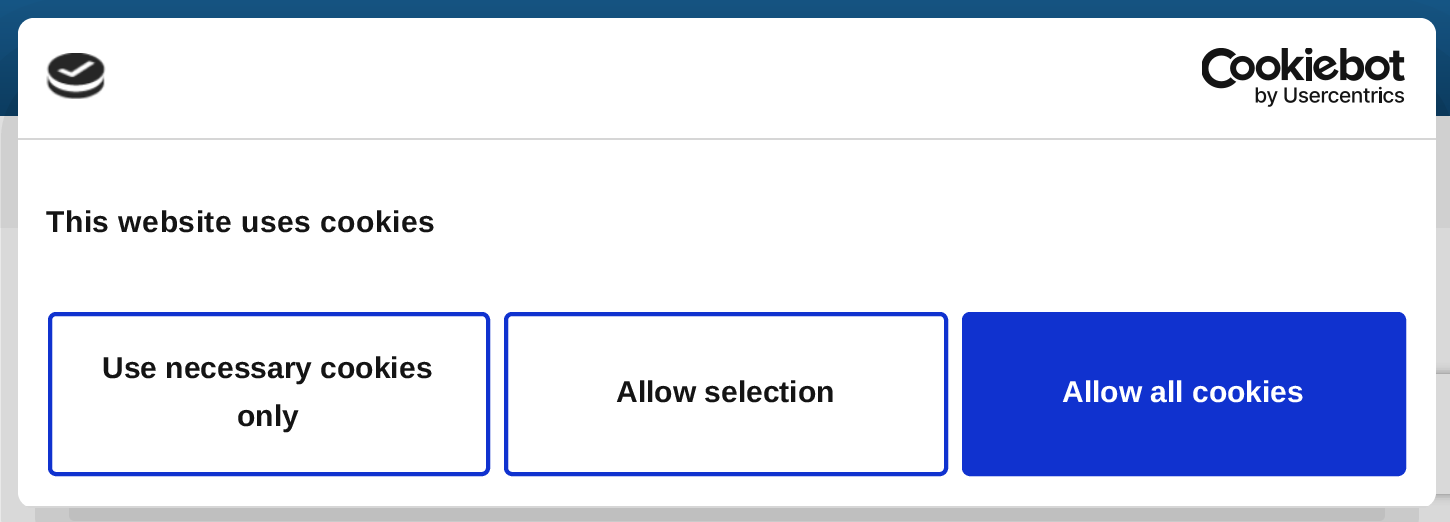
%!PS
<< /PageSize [1450 522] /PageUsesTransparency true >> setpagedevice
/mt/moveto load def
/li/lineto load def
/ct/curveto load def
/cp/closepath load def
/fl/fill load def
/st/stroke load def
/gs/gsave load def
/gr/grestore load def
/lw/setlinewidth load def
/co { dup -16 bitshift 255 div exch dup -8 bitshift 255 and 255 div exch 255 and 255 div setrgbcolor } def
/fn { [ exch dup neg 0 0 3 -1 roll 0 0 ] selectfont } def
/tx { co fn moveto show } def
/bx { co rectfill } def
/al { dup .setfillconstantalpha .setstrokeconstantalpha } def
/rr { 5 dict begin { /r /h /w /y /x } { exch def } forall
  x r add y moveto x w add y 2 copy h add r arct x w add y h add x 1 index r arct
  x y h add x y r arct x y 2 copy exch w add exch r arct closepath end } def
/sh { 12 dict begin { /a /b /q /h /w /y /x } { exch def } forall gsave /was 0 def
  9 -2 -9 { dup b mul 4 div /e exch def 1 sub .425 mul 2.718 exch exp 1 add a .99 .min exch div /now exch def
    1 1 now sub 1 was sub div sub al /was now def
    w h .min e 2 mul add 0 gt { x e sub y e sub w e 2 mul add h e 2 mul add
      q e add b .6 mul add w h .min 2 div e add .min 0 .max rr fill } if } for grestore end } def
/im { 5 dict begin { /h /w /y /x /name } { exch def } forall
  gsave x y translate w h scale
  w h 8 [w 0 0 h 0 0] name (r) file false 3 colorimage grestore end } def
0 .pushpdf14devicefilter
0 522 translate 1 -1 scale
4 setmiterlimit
0 0 1450 522 16#FFFFFF bx
gs 0 0 mt 1450 0 li 1450 116 li 0 116 li cp clip newpath
<< /ShadingType 2 /ColorSpace /DeviceRGB /Coords [725 0 725 116] /Extend [true true] /Function << /FunctionType 2 /Domain [0 1] /C0 [.086 .345 .533] /C1 [.051 .263 .412] /N 1 >> >> shfill gr
0 116 1450 112 16#F5F5F5 bx
16#000000 co
18 82 1418 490 16 68 .3 sh
gs
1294 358 mt 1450 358 li 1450 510 li 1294 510 li cp 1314 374 mt 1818 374 li 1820 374 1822 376 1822 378 ct 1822 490 li 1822 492 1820 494 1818 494 ct 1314 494 li 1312 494 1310 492 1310 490 ct 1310 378 li 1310 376 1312 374 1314 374 ct cp eoclip newpath
16#808080 co
1310 374 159 120 4 5 1 sh
gr
16#FFFFFF co
18 18 1418 490 16 rr fl
18 138 1418 2 16#D6D6D6 bx
(media/1.raw) 46 53 60 46 im
(media/2.raw) 1202 48 203 59 im
gs
18 18 1418 490 16 rr clip newpath
18 506 1418 2 16#D6D6D6 bx
gr
16#1032CF co
4 lw
50 314 438 160 6 rr st
506 314 440 160 6 rr st
964 314 440 160 6 rr gs fl gr
st
/LiberationSans-Bold 30 fn
16#141414 co
46 232 mt .5 0 (This website uses cookies) ashow
(Use necessary cookies) 102 378 /LiberationSans-Bold 30 16#141414 tx
(only) 237 426 /LiberationSans-Bold 30 16#141414 tx
(Allow selection) 616 402 /LiberationSans-Bold 30 16#141414 tx
(Allow all cookies) 1062 402 /LiberationSans-Bold 30 16#FFFFFF tx
.poppdf14devicefilter showpage
